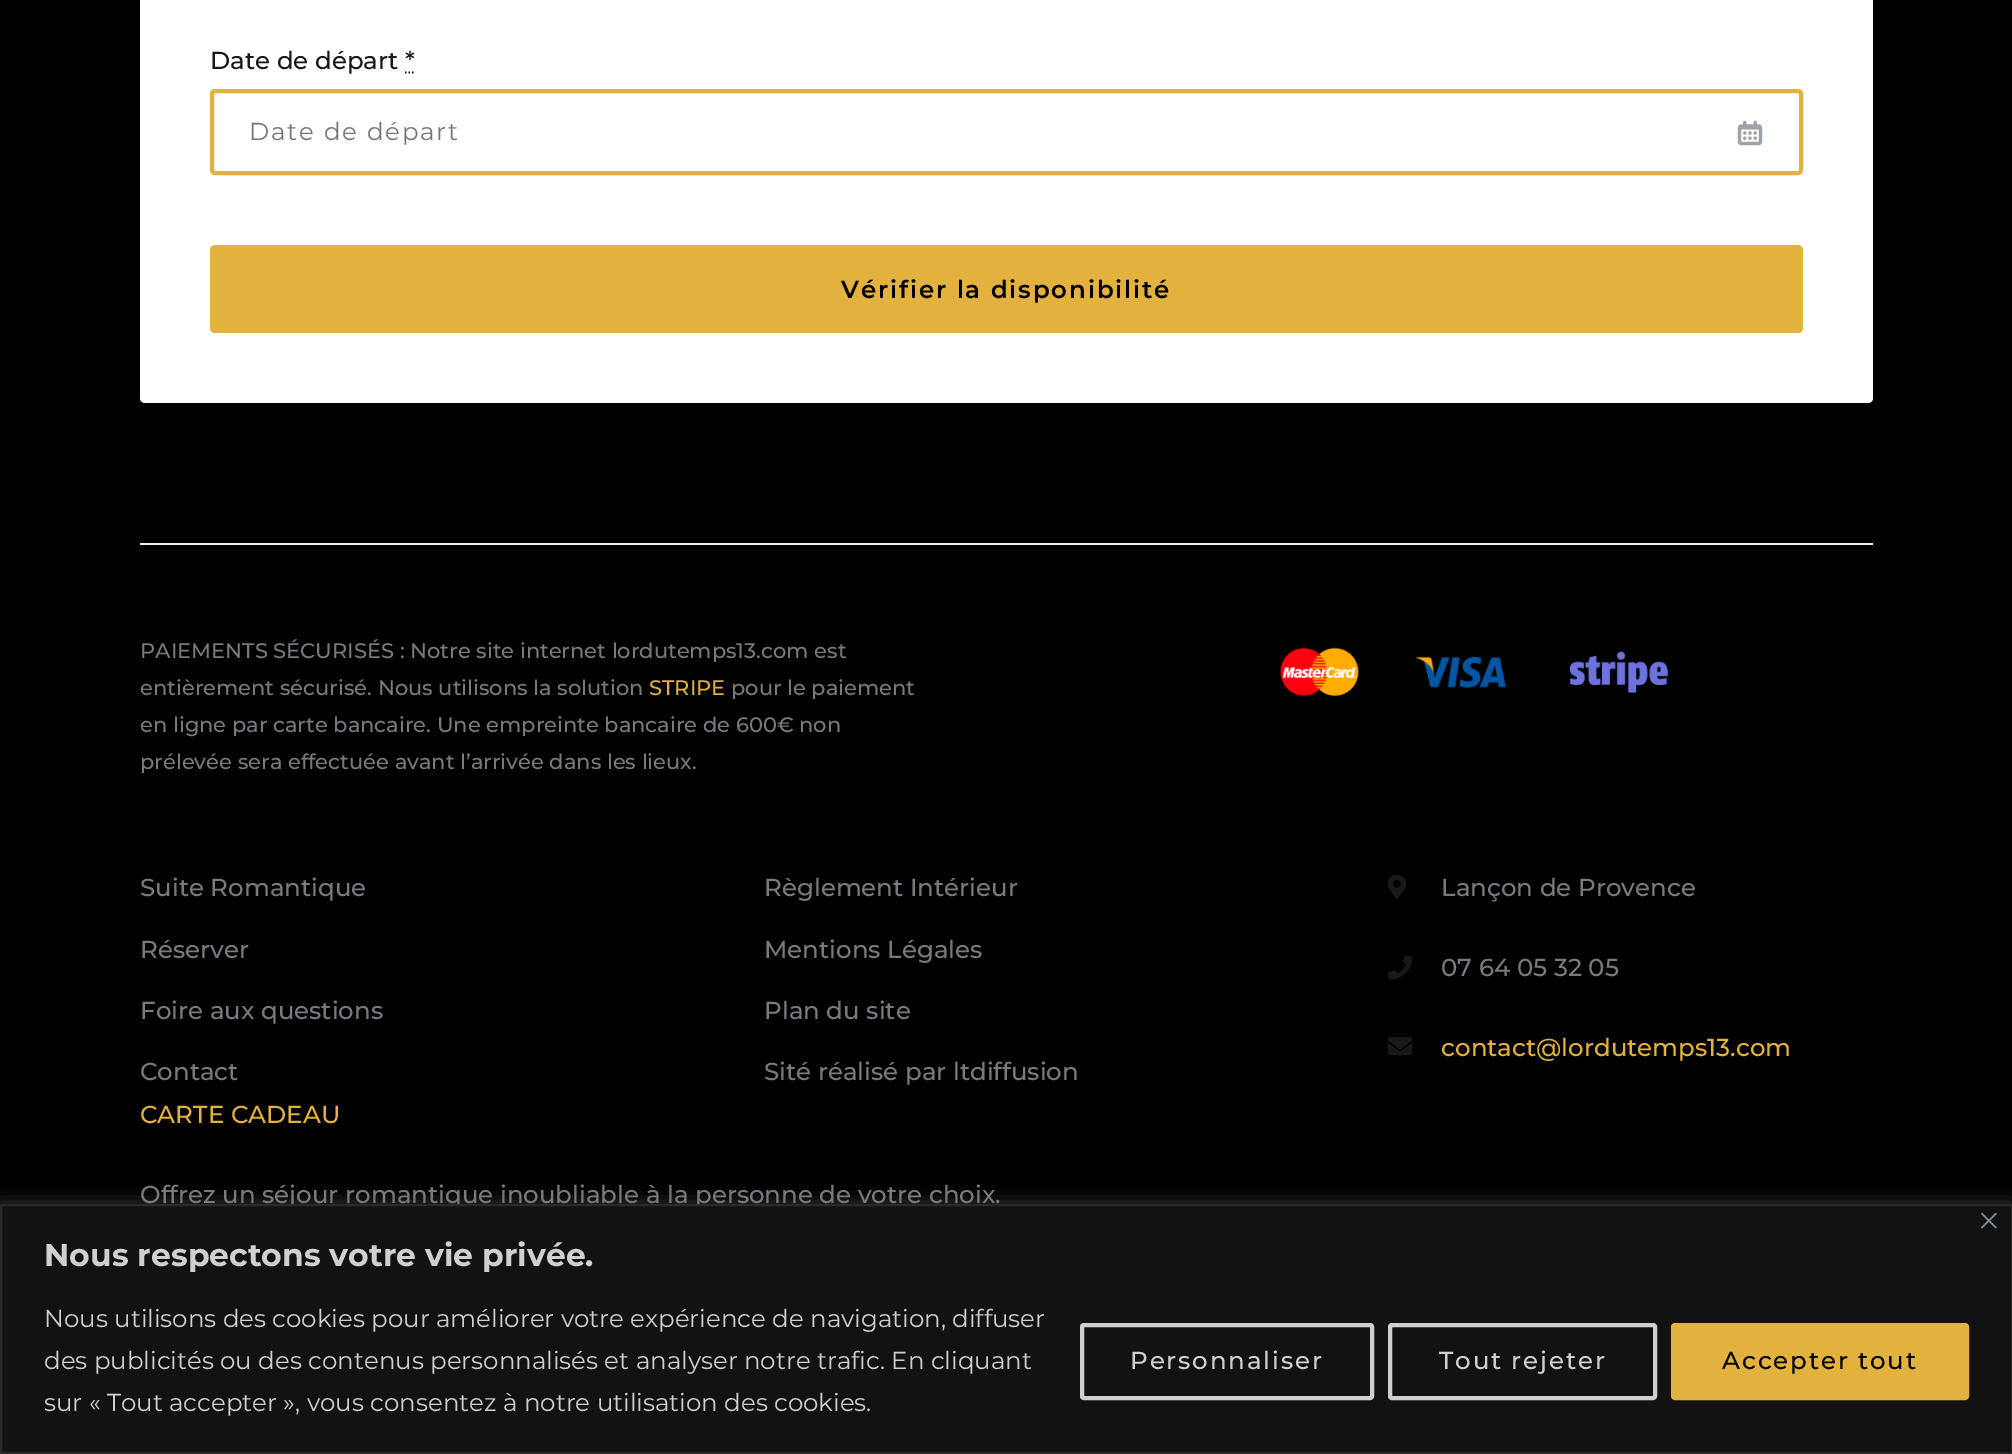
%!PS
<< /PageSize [2012 1454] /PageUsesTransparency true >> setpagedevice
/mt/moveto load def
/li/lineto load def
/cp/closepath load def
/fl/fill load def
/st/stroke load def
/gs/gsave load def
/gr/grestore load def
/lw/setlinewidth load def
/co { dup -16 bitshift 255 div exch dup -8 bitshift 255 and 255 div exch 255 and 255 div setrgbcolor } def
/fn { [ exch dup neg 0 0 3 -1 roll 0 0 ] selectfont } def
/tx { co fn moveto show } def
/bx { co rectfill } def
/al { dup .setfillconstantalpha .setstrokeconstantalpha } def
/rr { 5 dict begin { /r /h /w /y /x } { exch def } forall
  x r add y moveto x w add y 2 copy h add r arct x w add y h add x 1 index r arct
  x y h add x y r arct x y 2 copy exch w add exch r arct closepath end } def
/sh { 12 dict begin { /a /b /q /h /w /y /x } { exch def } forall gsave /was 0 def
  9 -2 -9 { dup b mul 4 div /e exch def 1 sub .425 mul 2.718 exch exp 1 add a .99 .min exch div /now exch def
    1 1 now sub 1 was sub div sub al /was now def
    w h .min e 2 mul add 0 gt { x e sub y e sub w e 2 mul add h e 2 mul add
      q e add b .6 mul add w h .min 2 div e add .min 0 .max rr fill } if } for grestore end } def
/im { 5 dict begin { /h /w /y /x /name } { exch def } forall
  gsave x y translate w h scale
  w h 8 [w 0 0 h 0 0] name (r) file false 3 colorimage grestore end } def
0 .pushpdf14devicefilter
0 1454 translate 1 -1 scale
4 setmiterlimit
0 0 2012 1454 16#000000 bx
16#FFFFFF co
140 -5 1733 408 5 rr fl
16#17181A co
1.8 lw
405 72.5 mt 406.5 72.5 li 408.5 72.5 mt 410 72.5 li 412 72.5 mt 413.5 72.5 li st
(media/1.raw) 1737 120 26 26 im
16#E2B13E co
4 lw
212 91 1589 82 3 rr st
210 245 1593 88 5 rr fl
140 543 1733 2 16#EDEDED bx
(media/2.raw) 1280 647 389 49 im
(media/3.raw) 1387 874 19 25 im
(media/4.raw) 1388 955 25 25 im
(media/5.raw) 1387 1037 26 19 im
16#ACABAB co
0 1202 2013 251 0 9 .3 sh
(Date de départ *) 210 69 /Montserrat-Medium 24.5 16#17181A tx
/Montserrat-Regular 24.5 fn
16#757575 co
249 140 mt 1.75 0 (Date de départ) ashow
/Montserrat-SemiBold 24.5 fn
16#000000 co
841 298 mt 1.85 0 (Vérifier la disponibilité) ashow
(PAIEMENTS SÉCURISÉS : Notre site internet lordutemps13.com est) 140 658 /Montserrat-Medium 21 16#767B80 tx
(entièrement sécurisé. Nous utilisons la solution) 140 695 /Montserrat-Medium 21 16#767B80 tx
(STRIPE) 649 695 /Montserrat-Medium 21 16#E2B13E tx
(pour le paiement) 731 695 /Montserrat-Medium 21 16#767B80 tx
(en ligne par carte bancaire. Une empreinte bancaire de 600€ non) 140 732 /Montserrat-Medium 21 16#767B80 tx
(prélevée sera effectuée avant l’arrivée dans les lieux.) 140 769 /Montserrat-Medium 21 16#767B80 tx
(Suite Romantique) 140 896 /Montserrat-Medium 24.5 16#767B80 tx
(Réserver) 140 958 /Montserrat-Medium 24.5 16#767B80 tx
(Foire aux questions) 140 1019 /Montserrat-Medium 24.5 16#767B80 tx
(Contact) 140 1080 /Montserrat-Medium 24.5 16#767B80 tx
(Règlement Intérieur) 764 896 /Montserrat-Medium 24.5 16#767B80 tx
(Mentions Légales) 764 958 /Montserrat-Medium 24.5 16#767B80 tx
(Plan du site) 764 1019 /Montserrat-Medium 24.5 16#767B80 tx
(Sité réalisé par ltdiffusion) 764 1080 /Montserrat-Medium 24.5 16#767B80 tx
(Lançon de Provence) 1441 896 /Montserrat-Medium 24.5 16#767B80 tx
(07 64 05 32 05) 1441 976 /Montserrat-Medium 24.5 16#767B80 tx
(contact@lordutemps13.com) 1441 1056 /Montserrat-Medium 24.5 16#E2B13E tx
(CARTE CADEAU) 140 1123 /Montserrat-Medium 24.5 16#E2B13E tx
(Offrez un séjour romantique inoubliable à la personne de votre choix.) 140 1203 /Montserrat-Medium 24.5 16#767B80 tx
16#121212 co
1 1205 mt 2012 1205 li 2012 1453 li 1 1453 li cp gs fl gr
16#2A2A2A co
2 lw
st
(media/6.raw) 1981 1213 16 16 im
(Nous respectons votre vie privée.) 44 1266 /Montserrat-Bold 31.5 16#D0D0D0 tx
(Nous utilisons des cookies pour améliorer votre expérience de navigation, diffuser) 44 1327 /Montserrat-Regular 24.5 16#D0D0D0 tx
(des publicités ou des contenus personnalisés et analyser notre trafic. En cliquant) 44 1369 /Montserrat-Regular 24.5 16#D0D0D0 tx
(sur « Tout accepter », vous consentez à notre utilisation des cookies.) 44 1411 /Montserrat-Regular 24.5 16#D0D0D0 tx
4 lw
1082 1325 290 73 2 rr st
/Montserrat-Medium 24.5 fn
1130 1369 mt 1.85 0 (Personnaliser) ashow
1390 1325 265 73 2 rr st
1439 1369 mt 1.85 0 (Tout rejeter) ashow
16#E2B13E co
1673 1325 294 73 2 rr gs fl gr
st
16#000000 co
1722 1369 mt 1.85 0 (Accepter tout) ashow
.poppdf14devicefilter showpage
